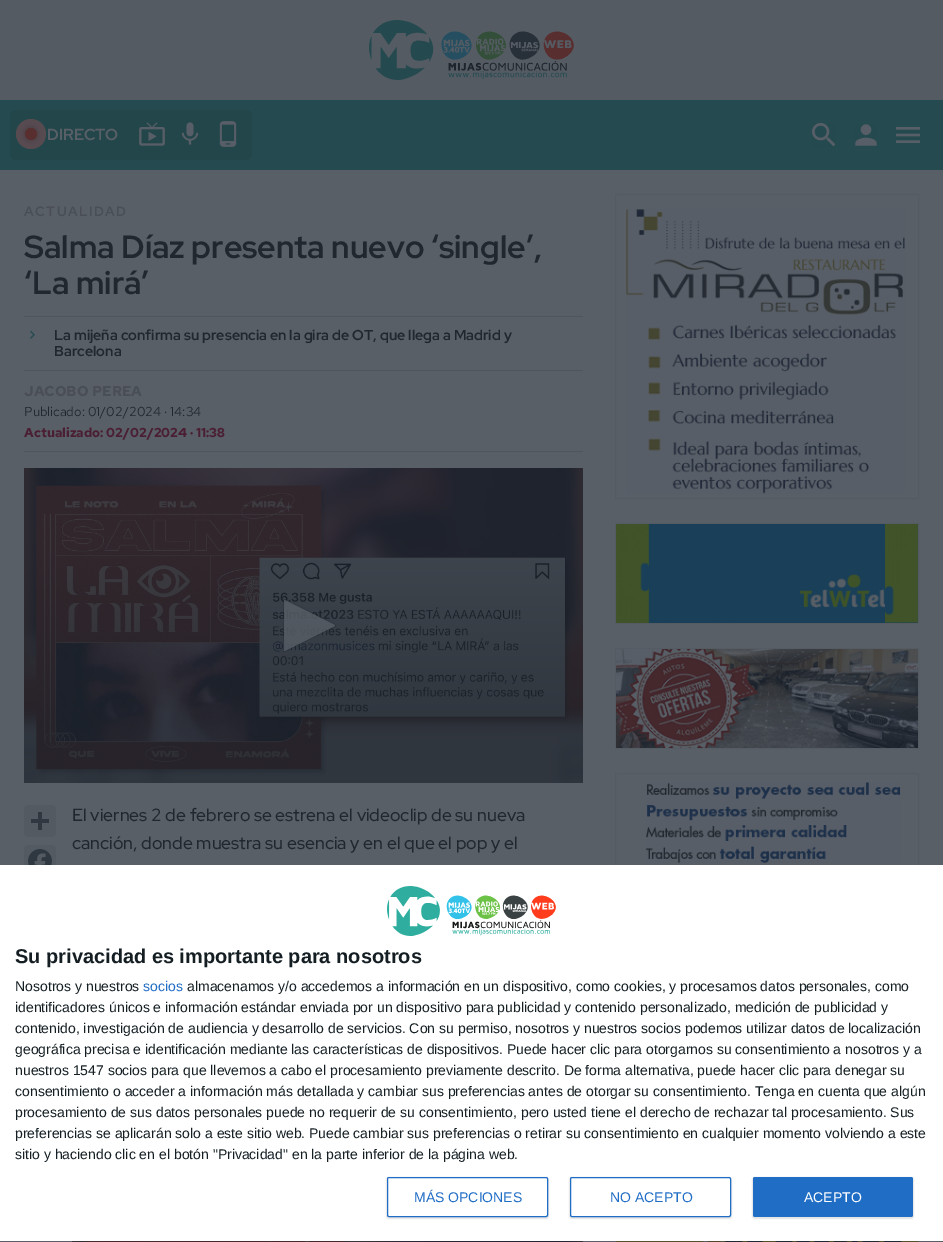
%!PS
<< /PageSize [943 1242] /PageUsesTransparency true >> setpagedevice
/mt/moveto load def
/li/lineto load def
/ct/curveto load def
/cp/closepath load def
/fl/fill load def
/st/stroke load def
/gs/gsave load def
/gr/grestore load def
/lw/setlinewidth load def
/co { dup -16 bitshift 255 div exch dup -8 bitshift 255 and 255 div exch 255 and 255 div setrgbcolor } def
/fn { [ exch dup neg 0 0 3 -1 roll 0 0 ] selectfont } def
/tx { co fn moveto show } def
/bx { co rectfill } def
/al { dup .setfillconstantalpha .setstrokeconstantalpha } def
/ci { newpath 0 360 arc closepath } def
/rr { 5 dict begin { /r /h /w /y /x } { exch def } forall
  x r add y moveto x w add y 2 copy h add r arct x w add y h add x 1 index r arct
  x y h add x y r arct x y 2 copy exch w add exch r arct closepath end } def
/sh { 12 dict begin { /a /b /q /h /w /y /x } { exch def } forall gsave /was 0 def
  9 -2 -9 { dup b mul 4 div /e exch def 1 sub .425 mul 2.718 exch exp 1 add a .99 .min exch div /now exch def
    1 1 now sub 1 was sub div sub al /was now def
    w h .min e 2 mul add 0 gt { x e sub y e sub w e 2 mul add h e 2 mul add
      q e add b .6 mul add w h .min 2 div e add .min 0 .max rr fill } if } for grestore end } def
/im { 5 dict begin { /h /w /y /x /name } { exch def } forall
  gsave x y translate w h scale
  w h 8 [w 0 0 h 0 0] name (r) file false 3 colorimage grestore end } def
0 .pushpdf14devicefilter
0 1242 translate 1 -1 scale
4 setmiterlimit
0 0 943 1242 16#595F67 bx
0 0 943 100 16#555B63 bx
(media/1.raw) 369 20 205 60 im
0 100 943 70 16#254A4F bx
16#23464B co
10 110 242 50 6 rr fl
16#594B50 co
31 134 15 ci fl
16#191F27 co
25 128 12 12 6 4 .3 sh
16#592E2E co
31 134 6 ci fl
(media/2.raw) 139 122 26 24 im
(media/3.raw) 181 122 18 23 im
(media/4.raw) 219 121 18 26 im
(media/5.raw) 812 123 24 24 im
(media/6.raw) 855 124 22 22 im
(media/7.raw) 896 127 24 16 im
24 316 559 1 16#4F555D bx
(media/8.raw) 30 330 5 9 im
24 370 559 1 16#4F555D bx
24 451 559 1 16#4F555D bx
(media/9.raw) 24 468 559 315 im
0.3 al
16#191F27 co
1.4 lw
285 651 mt 284 651 li 284 600.5 li 285 600 li 335 625 li 335 625 335.5 625.5 335 626 ct cp st
0.8 al
16#595F67 co
285 651 mt 284 651 li 284 600 li 285 600 li 335 625 li 335 625 335 626 335 626 ct cp fl
1 al
16#545A62 co
24 805 32 32 4 rr fl
38 812 4 18 16#2F3840 bx
31 819 18 4 16#2F3840 bx
16#545A62 co
24 845 32 32 4 rr fl
(media/10.raw) 28 849 24 16 im
(media/11.raw) 72 1241 511 1 im
16#555B63 co
1 lw
615.5 194.5 303 304 rectstroke
(media/12.raw) 626 209 279 285 im
615.5 523.5 303 100 rectstroke
(media/13.raw) 616 524 302 99 im
615.5 648.5 303 100 rectstroke
(media/14.raw) 616 649 302 99 im
615.5 773.5 303 100 rectstroke
(media/15.raw) 646 782 255 81 im
615.5 1024.5 303 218 rectstroke
(media/16.raw) 616 1241 302 1 im
0 865 943 376 16#FFFFFF bx
(media/17.raw) 387 886 169 50 im
16#000000 co
386 1177 163 42 3 .5 .1 sh
16#FFFFFF co
387.5 1177.5 160 39 1.5 rr gs fl gr
16#206DC5 co
st
16#000000 co
569 1177 163 42 3 .5 .1 sh
16#FFFFFF co
570.5 1177.5 160 39 1.5 rr gs fl gr
16#206DC5 co
st
16#000000 co
752 1177 162 42 3 .5 .1 sh
16#206DC5 co
753 1177 160 40 2 rr fl
(DIRECTO) 47 140 /RedHatDisplay-Bold 16 16#595F67 tx
/RedHatDisplay-Bold 13.5 fn
16#4A4F57 co
24 216 mt 1.5 0 (ACTUALIDAD) ashow
(Salma Díaz presenta nuevo ‘single’,) 24 258 /RedHatDisplay-Bold 32 16#21272F tx
(‘La mirá’) 24 294 /RedHatDisplay-Bold 32 16#21272F tx
(La mijeña confirma su presencia en la gira de OT, que llega a Madrid y) 54 340 /RedHatDisplay-Bold 14.4 16#21272F tx
(Barcelona) 54 356 /RedHatDisplay-Bold 14.4 16#21272F tx
(JACOBO PEREA) 24 396 /RedHatText-Bold 14.4 16#4A4F57 tx
(Publicado: 01/02/2024 · 14:34) 24 416 /RedHatText-Regular 13 16#21272F tx
(Actualizado: 02/02/2024 · 11:38) 24 437 /RedHatText-Bold 13 16#4A1F34 tx
(El viernes 2 de febrero se estrena el videoclip de su nueva) 72 821 /RedHatDisplay-Medium 17.6 16#21272F tx
(canción, donde muestra su esencia y en el que el pop y el) 72 849 /RedHatDisplay-Medium 17.6 16#21272F tx
(Su privacidad es importante para nosotros) 15 963 /LiberationSans-Bold 20 16#141E23 tx
(Nosotros y nuestros) 15 991 /LiberationSans-Regular 14 16#141E23 tx
(socios) 143 991 /LiberationSans-Regular 14 16#206DC5 tx
(almacenamos y/o accedemos a información en un dispositivo, como cookies, y procesamos datos personales, como) 187 991 /LiberationSans-Regular 14 16#141E23 tx
(identificadores únicos e información estándar enviada por un dispositivo para publicidad y contenido personalizado, medición de publicidad y) 15 1012 /LiberationSans-Regular 14 16#141E23 tx
(contenido, investigación de audiencia y desarrollo de servicios. Con su permiso, nosotros y nuestros socios podemos utilizar datos de localización) 15 1033 /LiberationSans-Regular 14 16#141E23 tx
(geográfica precisa e identificación mediante las características de dispositivos. Puede hacer clic para otorgarnos su consentimiento a nosotros y a) 15 1054 /LiberationSans-Regular 14 16#141E23 tx
(nuestros 1547 socios para que llevemos a cabo el procesamiento previamente descrito. De forma alternativa, puede hacer clic para denegar su) 15 1075 /LiberationSans-Regular 14 16#141E23 tx
(consentimiento o acceder a información más detallada y cambiar sus preferencias antes de otorgar su consentimiento. Tenga en cuenta que algún) 15 1096 /LiberationSans-Regular 14 16#141E23 tx
(procesamiento de sus datos personales puede no requerir de su consentimiento, pero usted tiene el derecho de rechazar tal procesamiento. Sus) 15 1117 /LiberationSans-Regular 14 16#141E23 tx
(preferencias se aplicarán solo a este sitio web. Puede cambiar sus preferencias o retirar su consentimiento en cualquier momento volviendo a este) 15 1138 /LiberationSans-Regular 14 16#141E23 tx
(sitio y haciendo clic en el botón "Privacidad" en la parte inferior de la página web.) 15 1159 /LiberationSans-Regular 14 16#141E23 tx
(MÁS OPCIONES) 414 1202 /LiberationSans-Regular 14 16#206DC5 tx
(NO ACEPTO) 610 1202 /LiberationSans-Regular 14 16#206DC5 tx
(ACEPTO) 804 1202 /LiberationSans-Regular 14 16#FFFFFF tx
.poppdf14devicefilter showpage
